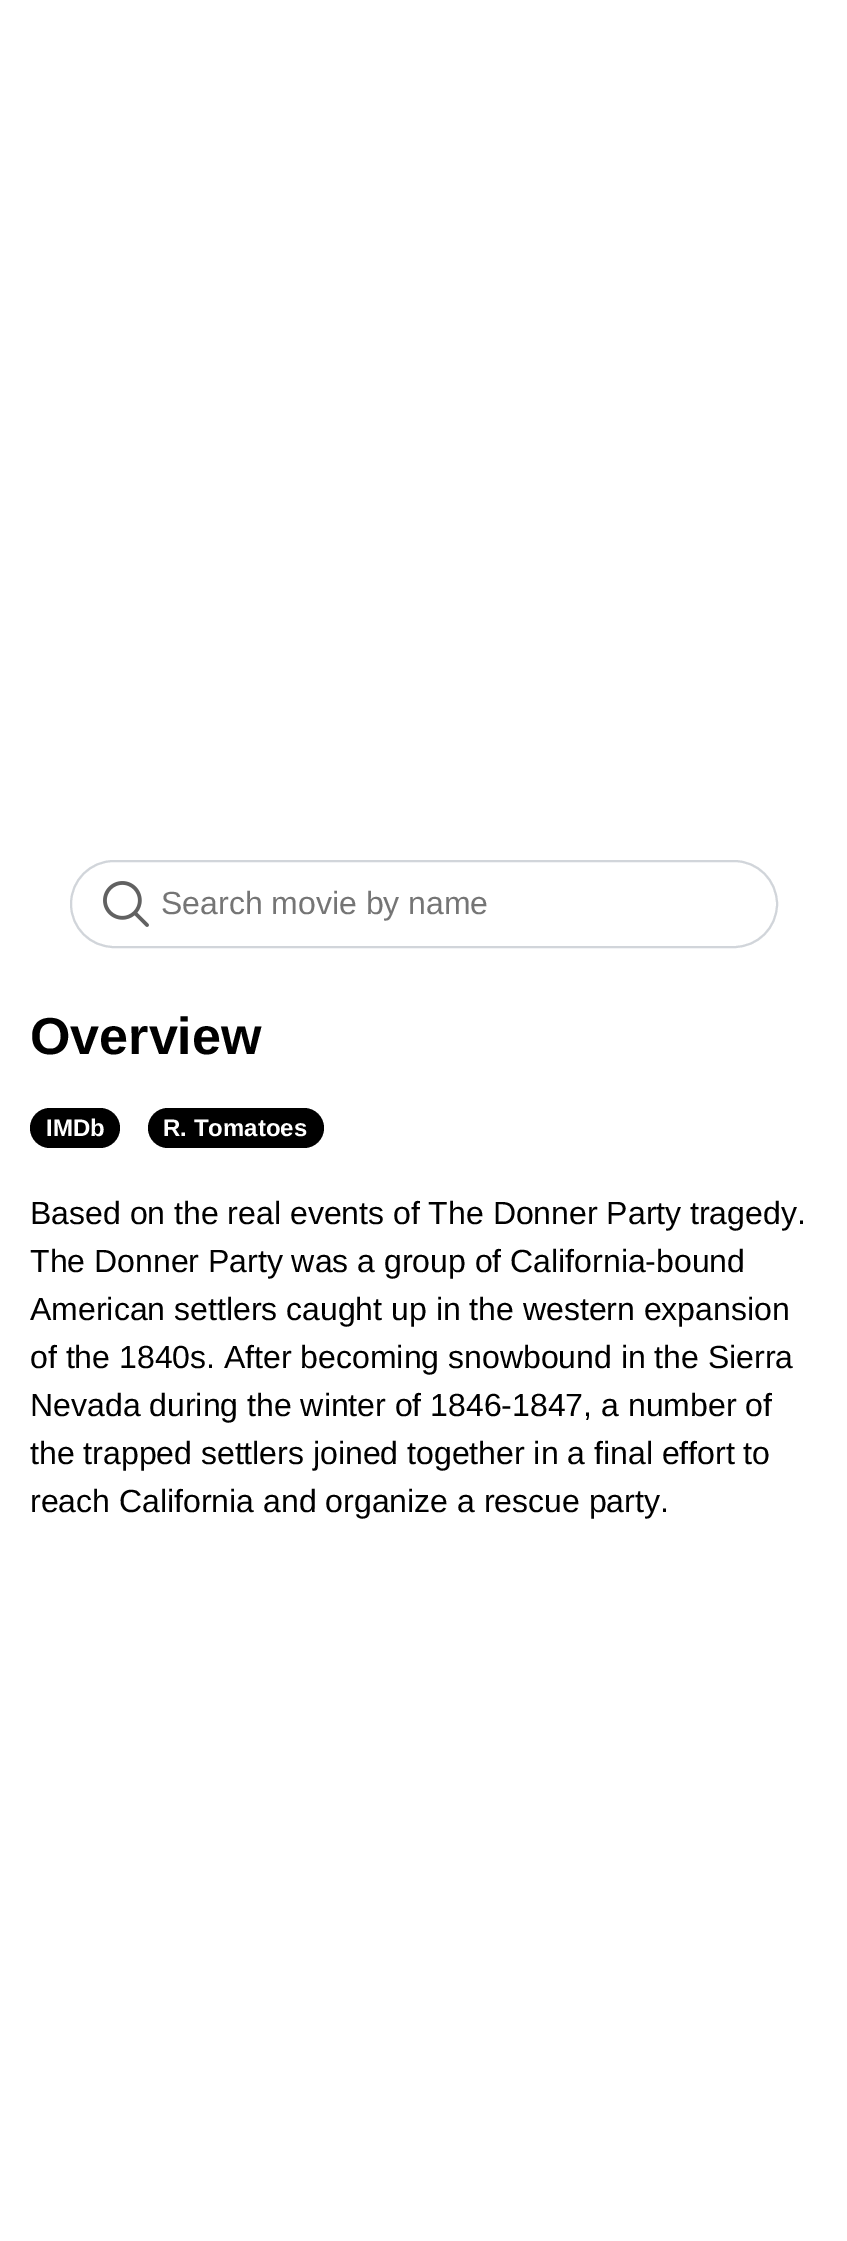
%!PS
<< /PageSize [847 2241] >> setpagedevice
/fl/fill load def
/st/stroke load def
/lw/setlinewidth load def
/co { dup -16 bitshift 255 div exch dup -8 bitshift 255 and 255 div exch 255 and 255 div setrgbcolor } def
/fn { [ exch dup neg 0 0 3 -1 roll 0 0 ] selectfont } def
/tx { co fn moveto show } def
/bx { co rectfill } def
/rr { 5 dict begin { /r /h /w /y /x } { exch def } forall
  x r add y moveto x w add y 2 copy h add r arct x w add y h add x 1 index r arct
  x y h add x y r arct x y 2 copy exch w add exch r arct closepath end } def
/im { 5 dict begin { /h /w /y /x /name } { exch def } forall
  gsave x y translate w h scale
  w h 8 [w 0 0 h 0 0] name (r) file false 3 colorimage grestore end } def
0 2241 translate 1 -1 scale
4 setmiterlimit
0 0 847 2241 16#FFFFFF bx
(media/1.raw) 103 881 46 46 im
16#D1D5DA co
2 lw
71 861 706 86 43 rr st
16#000000 co
30 1108 90 40 20 rr fl
148 1108 176 40 20 rr fl
(Search movie by name) 161 914 /LiberationSans-Regular 32 16#757575 tx
(Overview) 30 1054 /LiberationSans-Bold 52 16#000000 tx
(IMDb) 46 1136 /LiberationSans-Bold 24 16#FFFFFF tx
(R. Tomatoes) 163 1136 /LiberationSans-Bold 24 16#FFFFFF tx
(Based on the real events of The Donner Party tragedy.) 30 1224 /LiberationSans-Regular 32 16#000000 tx
(The Donner Party was a group of California-bound) 30 1272 /LiberationSans-Regular 32 16#000000 tx
(American settlers caught up in the western expansion) 30 1320 /LiberationSans-Regular 32 16#000000 tx
(of the 1840s. After becoming snowbound in the Sierra) 30 1368 /LiberationSans-Regular 32 16#000000 tx
(Nevada during the winter of 1846-1847, a number of) 30 1416 /LiberationSans-Regular 32 16#000000 tx
(the trapped settlers joined together in a final effort to) 30 1464 /LiberationSans-Regular 32 16#000000 tx
(reach California and organize a rescue party.) 30 1512 /LiberationSans-Regular 32 16#000000 tx
showpage
